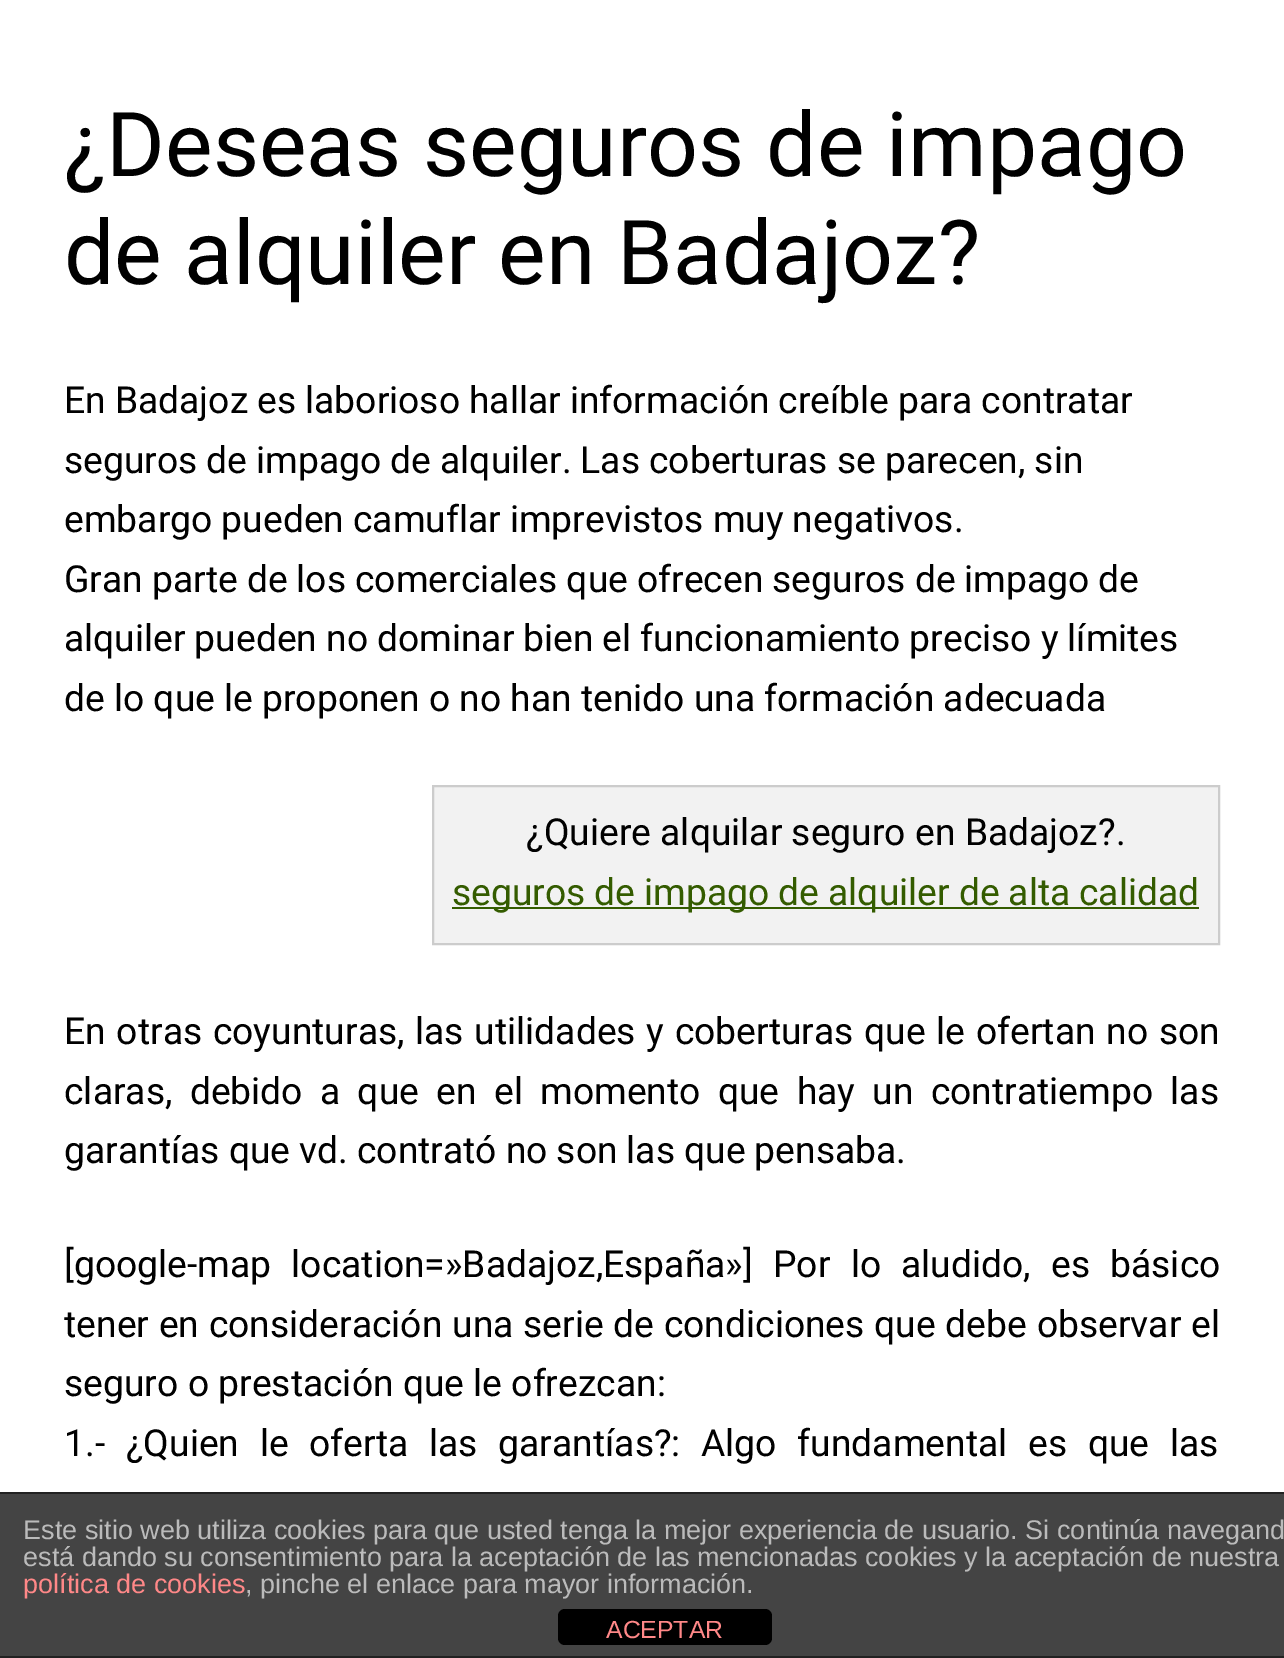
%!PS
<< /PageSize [1284 1658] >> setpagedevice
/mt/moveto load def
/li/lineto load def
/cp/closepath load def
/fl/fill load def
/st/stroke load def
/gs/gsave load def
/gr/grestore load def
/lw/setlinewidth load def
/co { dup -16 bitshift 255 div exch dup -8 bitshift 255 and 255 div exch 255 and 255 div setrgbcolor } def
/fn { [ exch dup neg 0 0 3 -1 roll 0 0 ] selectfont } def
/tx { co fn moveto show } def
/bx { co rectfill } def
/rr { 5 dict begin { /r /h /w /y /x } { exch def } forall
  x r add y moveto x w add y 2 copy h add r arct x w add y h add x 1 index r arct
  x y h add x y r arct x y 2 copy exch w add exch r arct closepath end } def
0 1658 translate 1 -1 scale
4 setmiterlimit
0 0 1284 1658 16#FFFFFF bx
16#F2F2F2 co
433 786 mt 1219 786 li 1219 944 li 433 944 li cp gs fl gr
16#CCCCCC co
2 lw
st
452 907 747 2 16#345C00 bx
0 1494 1284 162 16#444444 bx
0 1492 1284 2 16#222222 bx
0 1656 1284 2 16#222222 bx
16#000000 co
558 1609 214 36 7 rr fl
(¿Deseas seguros de impago) 64 176 /Roboto-Regular 89.5 16#000000 tx
(de alquiler en Badajoz?) 64 284 /Roboto-Regular 89.5 16#000000 tx
/Roboto-Regular 37.25 fn
64 413 mt -.25 0 32 (En Badajoz es laborioso hallar información creíble para contratar) widthshow
64 473 mt -.25 0 32 (seguros de impago de alquiler. Las coberturas se parecen, sin) widthshow
64 532 mt -.25 0 32 (embargo pueden camuflar imprevistos muy negativos.) widthshow
64 592 mt -.25 0 32 (Gran parte de los comerciales que ofrecen seguros de impago de) widthshow
64 651 mt -.25 0 32 (alquiler pueden no dominar bien el funcionamiento preciso y límites) widthshow
64 711 mt -.1 0 32 (de lo que le proponen o no han tenido una formación adecuada) widthshow
(¿Quiere alquilar seguro en Badajoz?.) 526 845 /Roboto-Regular 37.25 16#000000 tx
16#345C00 co
452 905 mt -.25 0 32 (seguros de impago de alquiler de alta calidad) widthshow
16#000000 co
64 1044 mt 1.5 0 32 (En otras coyunturas, las utilidades y coberturas que le ofertan no son) widthshow
64 1104 mt 8.1 0 32 (claras, debido a que en el momento que hay un contratiempo las) widthshow
64 1163 mt -.25 0 32 (garantías que vd. contrató no son las que pensaba.) widthshow
64 1277 mt 11 0 32 ([google-map location=»Badajoz,España»]) widthshow
773 1277 mt 11 0 32 (Por lo aludido, es básico) widthshow
64 1337 mt .5 0 32 (tener en consideración una serie de condiciones que debe observar el) widthshow
(seguro o prestación que le ofrezcan:) 64 1396 /Roboto-Regular 37.25 16#000000 tx
64 1456 mt 11.5 0 32 (1.- ¿Quien le oferta las garantías?: Algo fundamental es que las) widthshow
(Este sitio web utiliza cookies para que usted tenga la mejor experiencia de usuario. Si continúa navegand) 23 1539 /LiberationSans-Regular 27 16#BBBBBB tx
(está dando su consentimiento para la aceptación de las mencionadas cookies y la aceptación de nuestra) 23 1566 /LiberationSans-Regular 27 16#BBBBBB tx
(política de cookies) 23 1593 /LiberationSans-Regular 27 16#FF8888 tx
(, pinche el enlace para mayor información.) 245 1593 /LiberationSans-Regular 27 16#BBBBBB tx
(ACEPTAR) 606 1638 /LiberationSans-Regular 24.75 16#FF8888 tx
showpage
